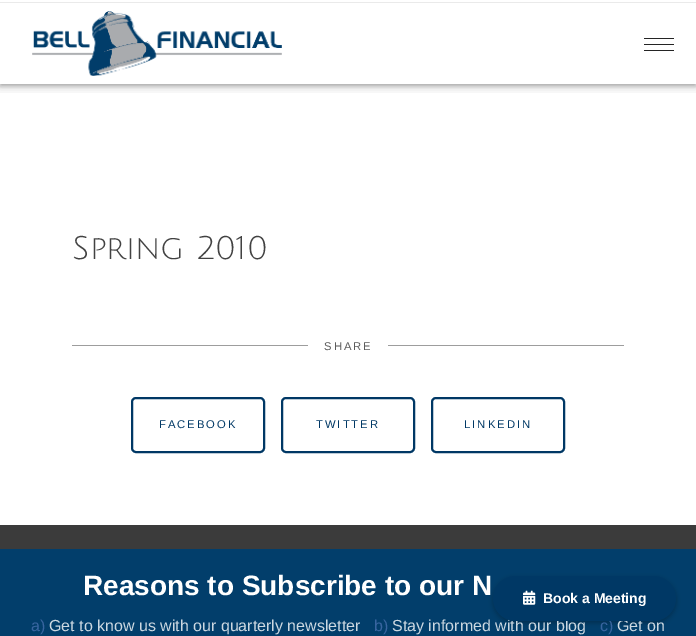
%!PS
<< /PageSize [696 636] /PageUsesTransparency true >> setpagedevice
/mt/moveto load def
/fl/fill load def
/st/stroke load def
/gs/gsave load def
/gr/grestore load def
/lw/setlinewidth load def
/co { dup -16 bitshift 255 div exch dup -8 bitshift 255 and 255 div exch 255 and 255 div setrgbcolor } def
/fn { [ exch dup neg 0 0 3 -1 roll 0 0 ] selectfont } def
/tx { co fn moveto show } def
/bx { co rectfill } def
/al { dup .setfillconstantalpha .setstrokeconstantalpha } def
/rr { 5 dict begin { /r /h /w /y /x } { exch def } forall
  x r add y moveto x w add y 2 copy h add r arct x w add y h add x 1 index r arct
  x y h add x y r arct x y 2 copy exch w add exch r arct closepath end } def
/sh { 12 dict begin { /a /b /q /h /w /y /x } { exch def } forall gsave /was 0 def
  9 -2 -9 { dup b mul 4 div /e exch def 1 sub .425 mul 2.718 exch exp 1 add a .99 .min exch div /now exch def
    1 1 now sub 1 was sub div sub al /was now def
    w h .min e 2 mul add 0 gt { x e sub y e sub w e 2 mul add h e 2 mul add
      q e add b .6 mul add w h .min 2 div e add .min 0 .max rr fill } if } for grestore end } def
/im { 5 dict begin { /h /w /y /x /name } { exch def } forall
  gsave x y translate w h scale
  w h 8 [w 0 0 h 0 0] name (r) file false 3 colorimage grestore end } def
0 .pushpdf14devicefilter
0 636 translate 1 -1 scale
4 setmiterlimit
0 0 696 636 16#FFFFFF bx
gs
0 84 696 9 rectclip
16#000000 co
0 -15 696 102 0 5 .19 sh
gr
gs
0 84 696 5 rectclip
16#000000 co
0 -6 696 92 0 2 .2 sh
gr
0 2 696 1 16#EAEAEA bx
(media/1.raw) 32 11 250 65 im
644 44 30 1 16#242424 bx
644 38 30 1 16#242424 bx
644 50 30 1 16#242424 bx
72 345 552 1 16#9D9D9D bx
308 345 80 1 16#FFFFFF bx
16#003865 co
2 lw
132 398 132 54 4 rr st
282 398 132 54 4 rr st
432 398 132 54 4 rr st
0 525 696 24 16#3B3B3B bx
0 549 696 87 16#023E6B bx
16#000000 co
493 578 183 45 22.5 2.5 .25 sh
(Spring 2010) 72 259 /JuliusSansOne-Regular 32 16#424242 tx
/LiberationSans-Regular 11.25 fn
16#5C5C5C co
324 350 mt 2 0 (SHARE) ashow
16#003865 co
159 428 mt 2 0 (FACEBOOK) ashow
316 428 mt 2 0 (TWITTER) ashow
464 428 mt 2 0 (LINKEDIN) ashow
(Reasons to Subscribe to our N) 83 595 /LiberationSans-Bold 28 16#FFFFFF tx
(a\)) 31 631 /LiberationSans-Regular 16 16#3865A0 tx
(Get to know us with our quarterly newsletter) 49 631 /LiberationSans-Regular 16 16#CCD8E1 tx
(b\)) 374 631 /LiberationSans-Regular 16 16#3865A0 tx
(Stay informed with our blog) 392 631 /LiberationSans-Regular 16 16#CCD8E1 tx
(c\)) 600 631 /LiberationSans-Regular 16 16#3865A0 tx
(Get on) 617 631 /LiberationSans-Regular 16 16#CCD8E1 tx
16#003865 co
493 576 183 45 22.5 rr fl
(media/2.raw) 523 590 13 15 im
(Book a Meeting) 543 603 /LiberationSans-Bold 14 16#FFFFFF tx
.poppdf14devicefilter showpage
